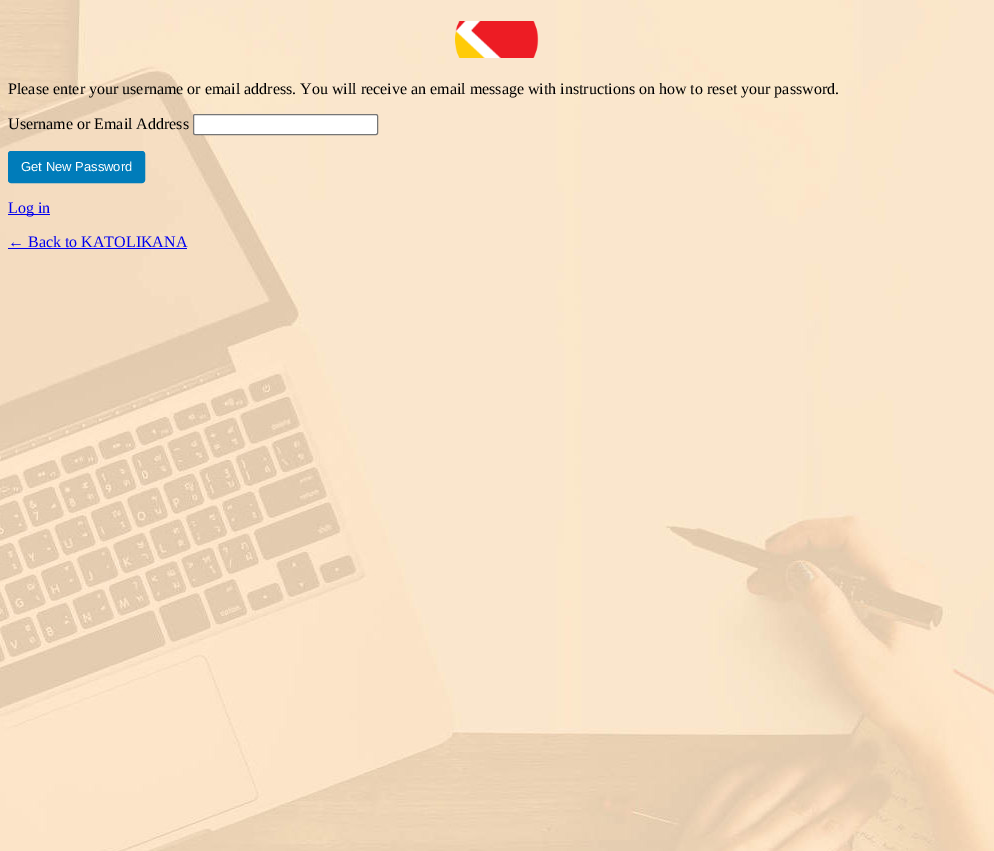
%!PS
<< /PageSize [994 851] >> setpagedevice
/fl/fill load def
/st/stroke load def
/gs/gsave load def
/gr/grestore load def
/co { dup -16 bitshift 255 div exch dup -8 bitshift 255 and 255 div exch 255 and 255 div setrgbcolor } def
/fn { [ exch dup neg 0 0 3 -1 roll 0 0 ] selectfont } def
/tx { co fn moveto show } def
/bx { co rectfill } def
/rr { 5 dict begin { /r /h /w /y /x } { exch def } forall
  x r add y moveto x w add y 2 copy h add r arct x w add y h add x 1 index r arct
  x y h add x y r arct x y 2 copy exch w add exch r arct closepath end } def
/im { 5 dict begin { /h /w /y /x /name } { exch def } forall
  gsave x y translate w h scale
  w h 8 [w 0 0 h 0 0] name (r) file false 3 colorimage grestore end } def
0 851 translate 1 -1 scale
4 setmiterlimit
0 0 994 851 16#FFFFFF bx
(media/1.raw) 0 0 994 851 im
(media/2.raw) 455 21 84 37 im
193.5 114.5 184 20 1.5 rr gs fl gr
16#767676 co
st
16#007CBA co
8.5 151.5 136 31 2.5 rr gs fl gr
st
8 214 42 1 16#0000EE bx
8 248 179 1 16#0000EE bx
(Please enter your username or email address. You will receive an email message with instructions on how to reset your password.) 8 94 /LiberationSerif-Regular 16 16#000000 tx
(Username or Email Address) 8 129 /LiberationSerif-Regular 16 16#000000 tx
(Get New Password) 21 171 /LiberationSans-Regular 13 16#FFFFFF tx
(Log in) 8 213 /LiberationSerif-Regular 16 16#0000EE tx
(← Back to KATOLIKANA) 8 247 /LiberationSerif-Regular 16 16#0000EE tx
showpage
